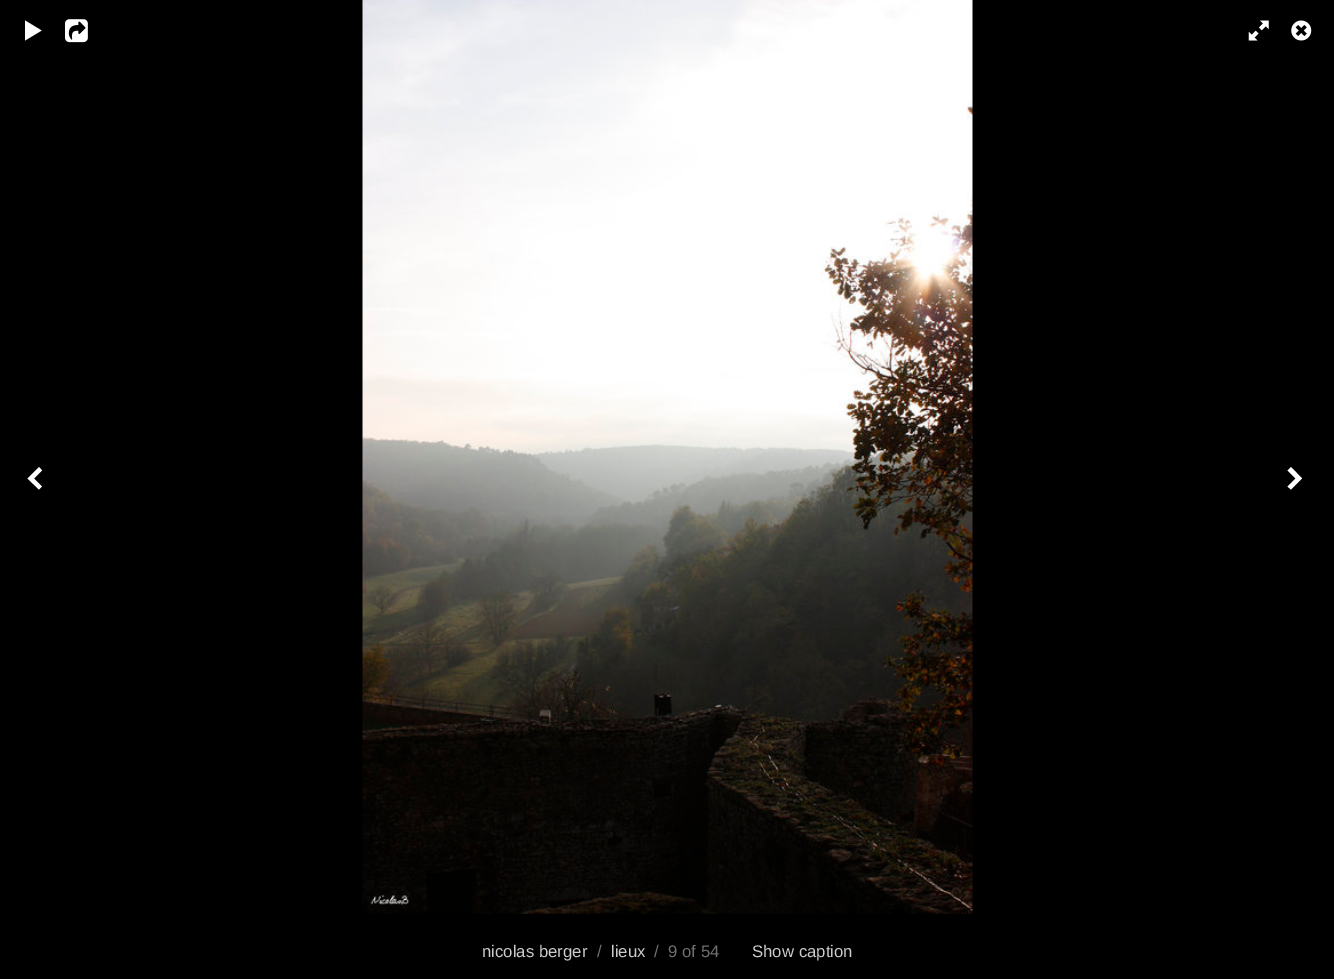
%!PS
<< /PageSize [1334 979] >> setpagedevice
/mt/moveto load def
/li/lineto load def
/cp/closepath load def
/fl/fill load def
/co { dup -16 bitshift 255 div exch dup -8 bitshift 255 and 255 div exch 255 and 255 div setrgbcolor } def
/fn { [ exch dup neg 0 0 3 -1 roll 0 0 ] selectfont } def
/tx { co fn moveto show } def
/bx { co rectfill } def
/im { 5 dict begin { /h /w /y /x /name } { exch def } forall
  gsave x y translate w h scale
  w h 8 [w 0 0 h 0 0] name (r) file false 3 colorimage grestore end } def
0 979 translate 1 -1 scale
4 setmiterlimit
0 0 1334 979 16#000000 bx
16#FFFFFF co
25 40.5 mt 25 20.5 li 41.5 30.5 li cp fl
(media/1.raw) 65 19 23 24 im
(media/2.raw) 362 0 611 914 im
(media/3.raw) 1248 20 21 21 im
(media/4.raw) 1291 20 21 21 im
27.5 478.5 mt 39 467 li 42 470.5 li 34 478.5 li 42 486.5 li 39 489.5 li cp fl
1287.5 486.5 mt 1295.5 478.5 li 1287.5 470.5 li 1291 467 li 1302 478.5 li 1291 489.5 li cp fl
(nicolas berger) 482 957 /LiberationSans-Regular 16.75 16#CCCCCC tx
(/) 597 957 /LiberationSans-Regular 16.75 16#707070 tx
(lieux) 611 957 /LiberationSans-Regular 16.75 16#CCCCCC tx
(/  9 of 54) 654 957 /LiberationSans-Regular 16.75 16#707070 tx
(Show caption) 752 957 /LiberationSans-Regular 16.75 16#CCCCCC tx
showpage
